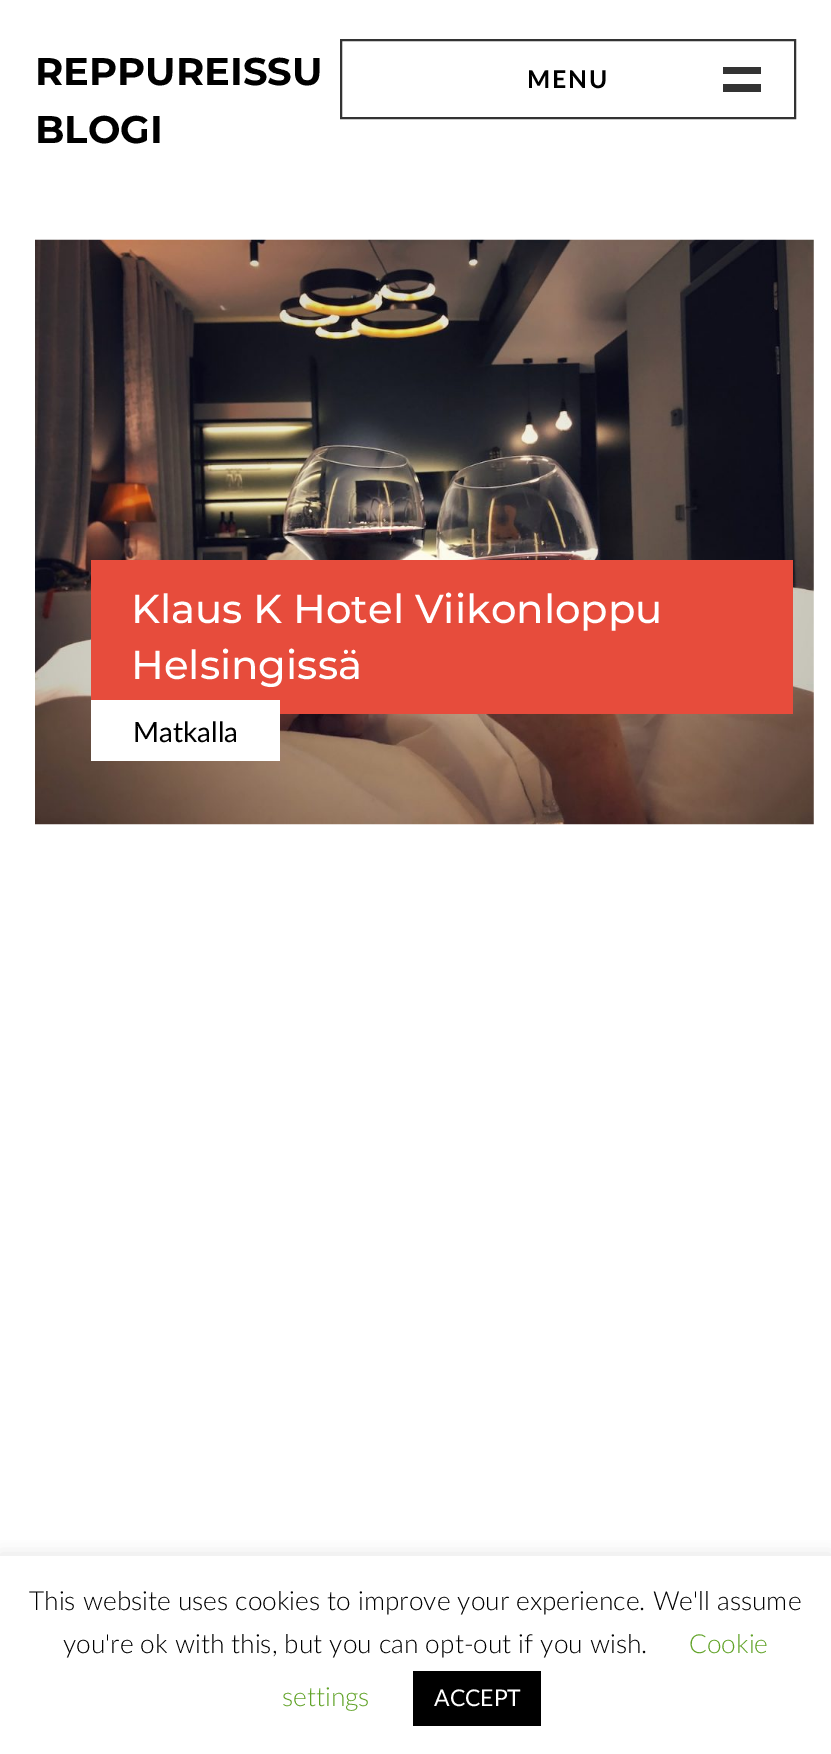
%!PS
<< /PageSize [831 1754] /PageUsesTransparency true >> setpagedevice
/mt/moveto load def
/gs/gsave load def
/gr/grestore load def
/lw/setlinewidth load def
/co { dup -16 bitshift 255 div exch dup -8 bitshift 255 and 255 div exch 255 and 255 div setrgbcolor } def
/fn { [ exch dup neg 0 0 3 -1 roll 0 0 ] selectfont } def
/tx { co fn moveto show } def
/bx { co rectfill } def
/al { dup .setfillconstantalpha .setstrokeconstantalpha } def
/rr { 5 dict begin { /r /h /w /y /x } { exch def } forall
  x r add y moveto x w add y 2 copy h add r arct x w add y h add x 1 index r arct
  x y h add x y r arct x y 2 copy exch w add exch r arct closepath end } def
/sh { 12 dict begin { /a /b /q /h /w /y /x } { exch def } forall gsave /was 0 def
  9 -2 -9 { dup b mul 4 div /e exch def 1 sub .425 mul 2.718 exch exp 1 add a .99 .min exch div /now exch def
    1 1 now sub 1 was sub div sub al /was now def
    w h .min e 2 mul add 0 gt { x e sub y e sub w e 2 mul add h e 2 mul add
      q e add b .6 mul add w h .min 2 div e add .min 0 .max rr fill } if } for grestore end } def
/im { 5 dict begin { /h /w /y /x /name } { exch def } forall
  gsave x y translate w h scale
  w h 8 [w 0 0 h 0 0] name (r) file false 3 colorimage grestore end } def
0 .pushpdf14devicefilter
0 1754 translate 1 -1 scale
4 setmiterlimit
0 0 831 1754 16#FFFFFF bx
16#333333 co
2 lw
341 40 454 78 rectstroke
723 67 38 7 16#333333 bx
723 84 38 8 16#333333 bx
(media/1.raw) 35 239 779 586 im
91 560 702 154 16#E74C3C bx
91 700 189 61 16#FFFFFF bx
gs
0 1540 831 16 rectclip
16#ACABAB co
0 1554 831 200 0 9 .3 sh
gr
413 1671 128 55 16#000000 bx
(REPPUREISSU) 35 85 /Montserrat-Bold 38.5 16#000000 tx
(BLOGI) 35 143 /Montserrat-Bold 38.5 16#000000 tx
/Lato-Bold 24.5 fn
527 88 mt 2 0 (MENU) ashow
(Klaus K Hotel Viikonloppu) 131 623 /Montserrat-Medium 40.25 16#FFFFFF tx
(Helsingissä) 131 679 /Montserrat-Medium 40.25 16#FFFFFF tx
(Matkalla) 133 742 /Lato-Regular 28 16#000000 tx
(This website uses cookies to improve your experience. We'll assume) 29 1610 /Lato-Light 26.25 16#000000 tx
(you're ok with this, but you can opt-out if you wish.) 63 1653 /Lato-Light 26.25 16#000000 tx
(Cookie) 689 1653 /Lato-Light 26.25 16#62A329 tx
(settings) 282 1706 /Lato-Light 26.25 16#62A329 tx
(ACCEPT) 434 1706 /Lato-Regular 23 16#FFFFFF tx
.poppdf14devicefilter showpage
